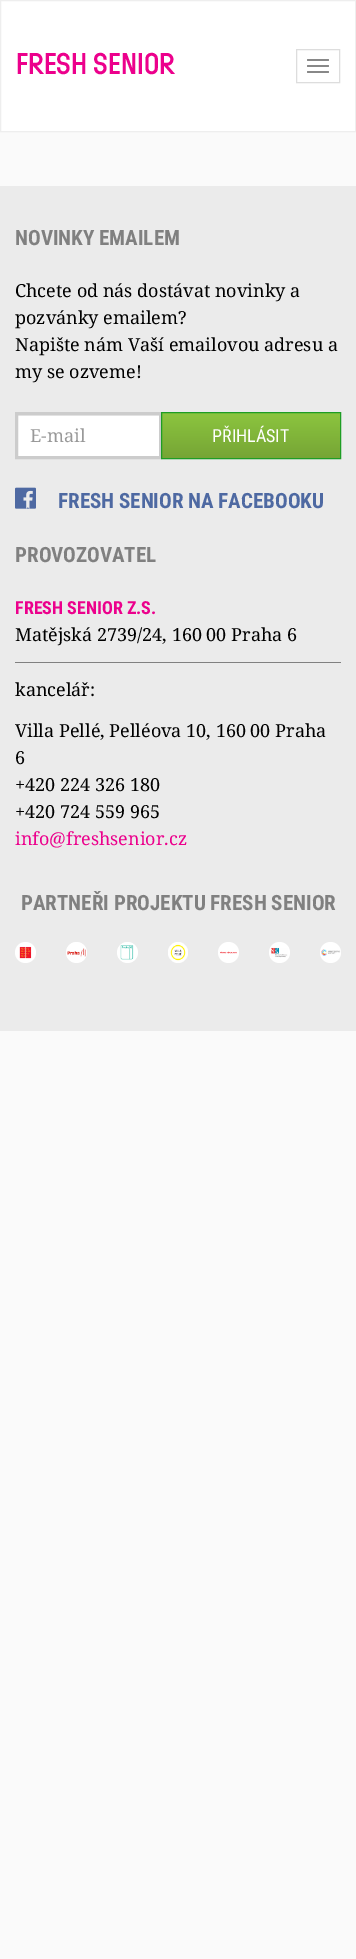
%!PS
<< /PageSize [356 1959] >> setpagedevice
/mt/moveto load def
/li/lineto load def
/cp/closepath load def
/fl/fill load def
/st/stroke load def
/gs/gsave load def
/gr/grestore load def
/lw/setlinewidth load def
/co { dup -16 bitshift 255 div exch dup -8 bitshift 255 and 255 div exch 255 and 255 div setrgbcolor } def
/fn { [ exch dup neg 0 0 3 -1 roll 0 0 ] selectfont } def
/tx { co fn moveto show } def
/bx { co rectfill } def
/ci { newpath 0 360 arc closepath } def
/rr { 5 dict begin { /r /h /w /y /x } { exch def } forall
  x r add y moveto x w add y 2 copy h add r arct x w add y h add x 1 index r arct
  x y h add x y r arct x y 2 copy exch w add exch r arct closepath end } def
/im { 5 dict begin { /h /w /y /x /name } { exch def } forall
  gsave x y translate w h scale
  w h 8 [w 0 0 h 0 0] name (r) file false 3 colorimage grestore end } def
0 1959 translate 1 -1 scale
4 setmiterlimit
0 0 356 1959 16#FAFAFA bx
16#FFFFFF co
.5 .5 mt 355.5 .5 li 355.5 131.5 li .5 131.5 li cp gs fl gr
16#EEEEEE co
st
16#DDDDDD co
296.5 49.5 43 33 rectstroke
16#888888 co
307 59 22 2 1 rr fl
307 65 22 2 1 rr fl
307 71 22 2 1 rr fl
0 186 356 845 16#EBEBEB bx
18 416 141 40 16#FFFFFF bx
16#CCCCCC co
3 lw
16.5 413.5 144 44 rectstroke
gs 162 413 mt 340 413 li 340 458 li 162 458 li cp clip newpath
<< /ShadingType 2 /ColorSpace /DeviceRGB /Coords [251 413 251 458] /Extend [true true] /Function << /FunctionType 2 /Domain [0 1] /C0 [.549 .773 .247] /C1 [.463 .647 .208] /N 1 >> >> shfill gr
16#1E9D24 co
1 lw
161.5 412.5 179 46 rectstroke
(media/1.raw) 15 487 21 22 im
15 662 326 1 16#808080 bx
16#FFFFFF co
25.5 952.5 10.5 ci fl
(media/2.raw) 19 946 13 13 im
76.5 952.5 10.5 ci fl
(media/3.raw) 67 942 20 20 im
127.5 952.5 10.5 ci fl
(media/4.raw) 118 942 19 20 im
168 942 20 21 10 rr fl
(media/5.raw) 170 944 16 17 im
228.5 952.5 10.5 ci fl
(media/6.raw) 220 951 17 3 im
279.5 952.5 10.5 ci fl
(media/7.raw) 270 947 20 11 im
330.5 952.5 10.5 ci fl
(media/8.raw) 321 949 20 7 im
(FRESH SENIOR) 16 74 /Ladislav-SemiBold 30 16#EC008C tx
(NOVINKY EMAILEM) 15 245 /RobotoCondensed-Bold 21 16#808080 tx
(Chcete od nás dostávat novinky a) 15 297 /NotoSerif-Regular 18 16#000000 tx
(pozvánky emailem?) 15 324 /NotoSerif-Regular 18 16#000000 tx
(Napište nám Vaší emailovou adresu a) 15 351 /NotoSerif-Regular 18 16#000000 tx
(my se ozveme!) 15 378 /NotoSerif-Regular 18 16#000000 tx
(E-mail) 30 442 /NotoSerif-Regular 18 16#999999 tx
(PŘIHLÁSIT) 212 442 /RobotoCondensed-Regular 18 16#FFFFFF tx
(FRESH SENIOR NA FACEBOOKU) 58 508 /RobotoCondensed-Bold 21 16#4E69A2 tx
(PROVOZOVATEL) 15 562 /RobotoCondensed-Bold 21 16#808080 tx
(FRESH SENIOR Z.S.) 15 614 /RobotoCondensed-Bold 18 16#EC008C tx
(Matějská 2739/24, 160 00 Praha 6) 15 641 /NotoSerif-Regular 18 16#000000 tx
(kancelář:) 15 696 /NotoSerif-Regular 18 16#000000 tx
(Villa Pellé, Pelléova 10, 160 00 Praha) 15 737 /NotoSerif-Regular 18 16#000000 tx
(6) 15 764 /NotoSerif-Regular 18 16#000000 tx
(+420 224 326 180) 15 791 /NotoSerif-Regular 18 16#000000 tx
(+420 724 559 965) 15 818 /NotoSerif-Regular 18 16#000000 tx
(info@freshsenior.cz) 15 845 /NotoSerif-Regular 18 16#EC008C tx
(PARTNEŘI PROJEKTU FRESH SENIOR) 21 910 /RobotoCondensed-Bold 21 16#808080 tx
showpage
